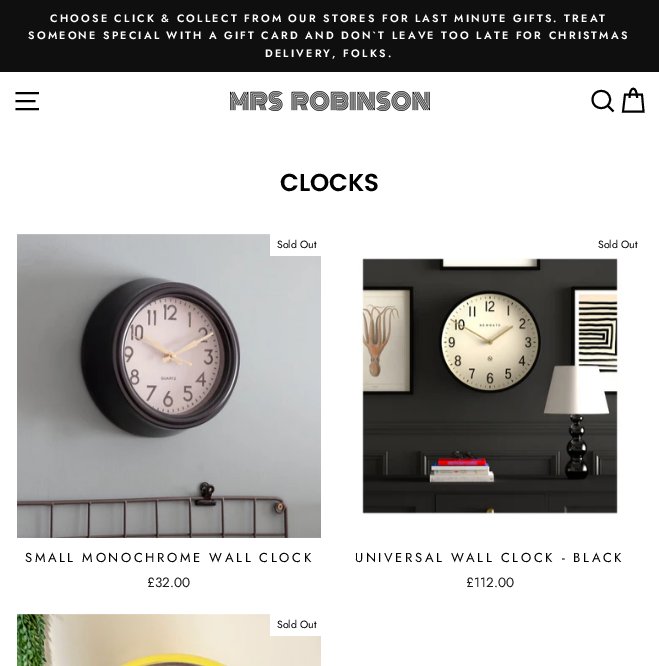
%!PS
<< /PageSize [659 666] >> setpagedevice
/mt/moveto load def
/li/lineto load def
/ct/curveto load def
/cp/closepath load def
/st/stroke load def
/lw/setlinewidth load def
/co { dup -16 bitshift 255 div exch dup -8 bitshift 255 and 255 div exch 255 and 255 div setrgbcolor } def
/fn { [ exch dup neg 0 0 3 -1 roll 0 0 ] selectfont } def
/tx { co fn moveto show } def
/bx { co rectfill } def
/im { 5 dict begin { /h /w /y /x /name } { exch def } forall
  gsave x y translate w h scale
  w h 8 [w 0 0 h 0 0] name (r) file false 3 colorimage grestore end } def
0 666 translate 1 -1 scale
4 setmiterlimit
0 0 659 666 16#FFFFFF bx
0 0 659 72 16#0F0F0F bx
16#000000 co
1.9 lw
15.5 93 mt 39 93 li 15.5 101 mt 35.5 101 li 15.5 109 mt 39 109 li st
(media/1.raw) 230 91 200 20 im
610 99.5 mt 610 111 592.5 111 592.5 99.5 ct 592.5 88 610 88 610 99.5 ct cp 613.5 111.5 mt 607.5 105.5 li 629.5 98 mt 629.5 85.5 637 85.5 637 98 ct 625 94.5 mt 642 94.5 li 643.5 111.5 li 623 111.5 li cp st
(media/2.raw) 17 234 304 304 im
270 234 51 22 16#FFFFFF bx
(media/3.raw) 359 258 263 257 im
(media/4.raw) 17 614 304 52 im
270 614 51 22 16#FFFFFF bx
/Jost-SemiBold 10.8 fn
50 22 mt 2.15 0 (CHOOSE CLICK & COLLECT FROM OUR STORES FOR LAST MINUTE GIFTS. TREAT) ashow
28 39 mt 2.15 0 (SOMEONE SPECIAL WITH A GIFT CARD AND DON`T LEAVE TOO LATE FOR CHRISTMAS) ashow
265 57 mt 2.15 0 (DELIVERY, FOLKS.) ashow
(CLOCKS) 280 191 /Poppins-SemiBold 24.5 16#000000 tx
(Sold Out) 277 248 /Jost-Regular 10.5 16#000000 tx
/Jost-Regular 13 fn
25 562 mt 2.6 0 (SMALL MONOCHROME WALL CLOCK) ashow
(£32.00) 147 587 /Jost-Regular 13.5 16#1C1D1D tx
(Sold Out) 598 248 /Jost-Regular 10.5 16#000000 tx
/Jost-Regular 13 fn
355 562 mt 2.6 0 (UNIVERSAL WALL CLOCK - BLACK) ashow
(£112.00) 466 587 /Jost-Regular 13.5 16#1C1D1D tx
(Sold Out) 277 628 /Jost-Regular 10.5 16#000000 tx
showpage
